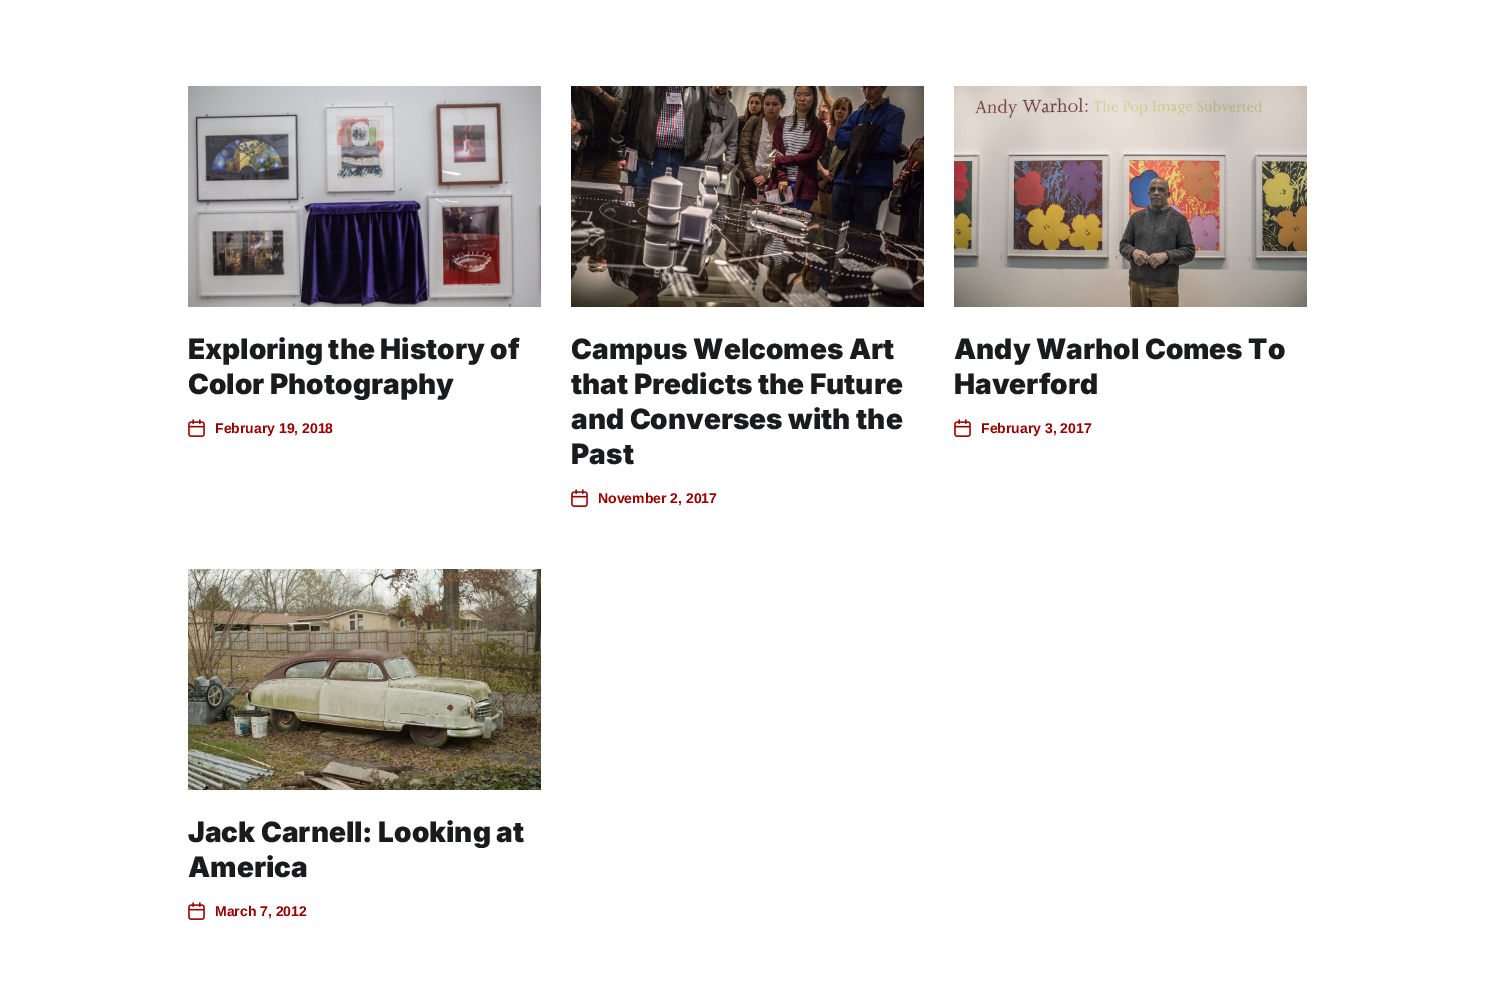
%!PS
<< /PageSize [1495 983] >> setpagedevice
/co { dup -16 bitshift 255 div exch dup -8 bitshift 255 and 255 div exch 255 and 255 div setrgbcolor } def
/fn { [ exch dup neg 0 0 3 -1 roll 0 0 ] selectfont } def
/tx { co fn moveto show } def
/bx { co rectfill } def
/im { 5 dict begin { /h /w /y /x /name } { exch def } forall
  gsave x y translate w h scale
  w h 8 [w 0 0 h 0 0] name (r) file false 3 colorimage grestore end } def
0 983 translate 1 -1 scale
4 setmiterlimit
0 0 1495 983 16#FFFFFF bx
(media/1.raw) 188 86 353 221 im
(media/2.raw) 188 419 17 18 im
(media/3.raw) 571 86 353 221 im
(media/2.raw) 571 489 17 18 im
(media/4.raw) 954 86 353 221 im
(media/2.raw) 954 419 17 18 im
(media/5.raw) 188 569 353 221 im
(media/2.raw) 188 902 17 18 im
(Exploring the History of) 188 359 /Inter-Black 28 16#1A1B1F tx
(Color Photography) 188 394 /Inter-Black 28 16#1A1B1F tx
(February 19, 2018) 215 433 /LiberationSans-Bold 14 16#980000 tx
(Campus Welcomes Art) 571 359 /Inter-Black 28 16#1A1B1F tx
(that Predicts the Future) 571 394 /Inter-Black 28 16#1A1B1F tx
(and Converses with the) 571 429 /Inter-Black 28 16#1A1B1F tx
(Past) 571 464 /Inter-Black 28 16#1A1B1F tx
(November 2, 2017) 598 503 /LiberationSans-Bold 14 16#980000 tx
(Andy Warhol Comes To) 954 359 /Inter-Black 28 16#1A1B1F tx
(Haverford) 954 394 /Inter-Black 28 16#1A1B1F tx
(February 3, 2017) 981 433 /LiberationSans-Bold 14 16#980000 tx
(Jack Carnell: Looking at) 188 842 /Inter-Black 28 16#1A1B1F tx
(America) 188 877 /Inter-Black 28 16#1A1B1F tx
(March 7, 2012) 215 916 /LiberationSans-Bold 14 16#980000 tx
showpage
